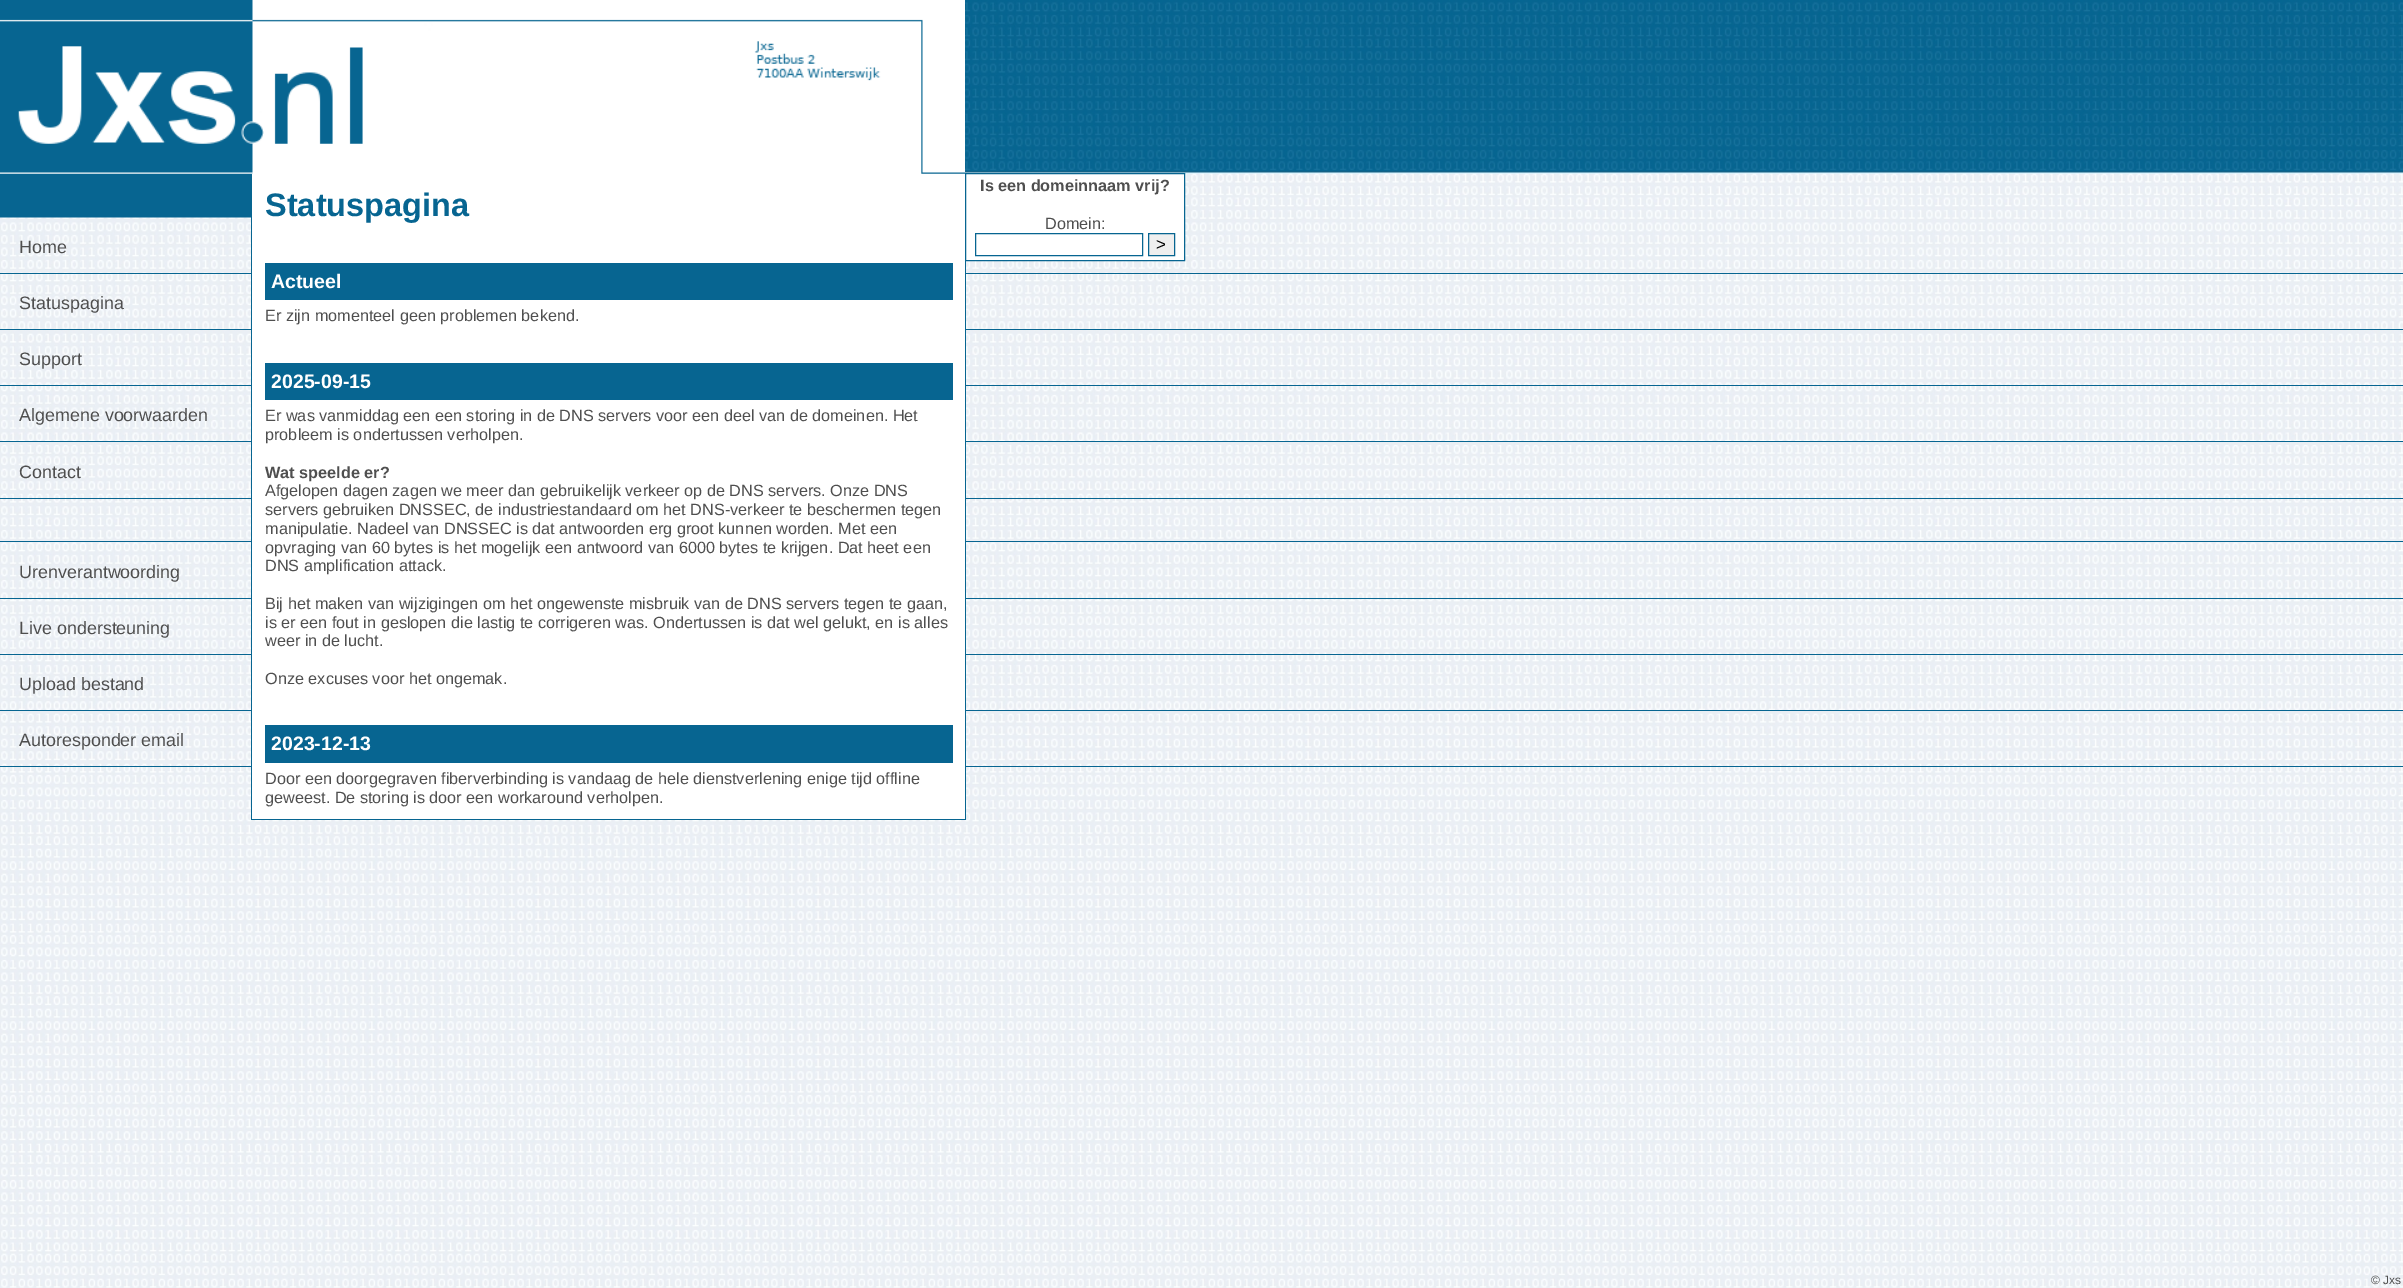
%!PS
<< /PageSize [2403 1288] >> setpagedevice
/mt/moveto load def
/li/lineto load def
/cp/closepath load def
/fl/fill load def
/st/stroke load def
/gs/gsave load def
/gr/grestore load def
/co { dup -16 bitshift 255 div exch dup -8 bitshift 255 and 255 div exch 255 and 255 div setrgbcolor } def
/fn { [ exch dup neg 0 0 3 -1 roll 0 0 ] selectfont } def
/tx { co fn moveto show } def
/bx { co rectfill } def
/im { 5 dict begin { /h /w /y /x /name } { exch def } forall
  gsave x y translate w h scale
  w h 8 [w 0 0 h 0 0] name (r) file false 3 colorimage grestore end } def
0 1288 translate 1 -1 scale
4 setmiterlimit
0 0 2403 1288 16#FFFFFF bx
(media/1.raw) 0 0 2403 1288 im
(media/2.raw) 0 0 965 218 im
(media/3.raw) 754 41 127 40 im
0 273 2403 1 16#076591 bx
0 329 2403 1 16#076591 bx
0 385 2403 1 16#076591 bx
0 441 2403 1 16#076591 bx
0 498 2403 1 16#076591 bx
0 541 2403 1 16#076591 bx
0 598 2403 1 16#076591 bx
0 654 2403 1 16#076591 bx
0 710 2403 1 16#076591 bx
0 766 2403 1 16#076591 bx
252 174 713 645 16#FFFFFF bx
965 261 1 559 16#076591 bx
251 819 715 1 16#076591 bx
251 217 1 603 16#076591 bx
265 263 688 37 16#076591 bx
265 363 688 37 16#076591 bx
265 725 688 38 16#076591 bx
16#FFFFFF co
965.5 173.5 mt 1184.5 173.5 li 1184.5 260.5 li 965.5 260.5 li cp gs fl gr
16#076591 co
st
975.5 233.5 167 22 rectstroke
16#EFEFEF co
1148.5 233.5 mt 1174.5 233.5 li 1174.5 255.5 li 1148.5 255.5 li cp gs fl gr
16#076591 co
st
(Home) 19 253 /LiberationSans-Regular 17.9 16#4F4F4F tx
(Statuspagina) 265 216 /LiberationSans-Bold 32.5 16#076591 tx
(Actueel) 271 288 /LiberationSans-Bold 19.5 16#FFFFFF tx
(Er zijn momenteel geen problemen bekend.) 265 321 /LiberationSans-Regular 16.25 16#4F4F4F tx
(2025-09-15) 271 388 /LiberationSans-Bold 19.5 16#FFFFFF tx
(Er was vanmiddag een een storing in de DNS servers voor een deel van de domeinen. Het) 265 421 /LiberationSans-Regular 16.25 16#4F4F4F tx
(probleem is ondertussen verholpen.) 265 440 /LiberationSans-Regular 16.25 16#4F4F4F tx
(Wat speelde er?) 265 478 /LiberationSans-Bold 16.25 16#4F4F4F tx
(Afgelopen dagen zagen we meer dan gebruikelijk verkeer op de DNS servers. Onze DNS) 265 496 /LiberationSans-Regular 16.25 16#4F4F4F tx
(servers gebruiken DNSSEC, de industriestandaard om het DNS-verkeer te beschermen tegen) 265 515 /LiberationSans-Regular 16.25 16#4F4F4F tx
(manipulatie. Nadeel van DNSSEC is dat antwoorden erg groot kunnen worden. Met een) 265 534 /LiberationSans-Regular 16.25 16#4F4F4F tx
(opvraging van 60 bytes is het mogelijk een antwoord van 6000 bytes te krijgen. Dat heet een) 265 553 /LiberationSans-Regular 16.25 16#4F4F4F tx
(DNS amplification attack.) 265 571 /LiberationSans-Regular 16.25 16#4F4F4F tx
(Bij het maken van wijzigingen om het ongewenste misbruik van de DNS servers tegen te gaan,) 265 609 /LiberationSans-Regular 16.25 16#4F4F4F tx
(is er een fout in geslopen die lastig te corrigeren was. Ondertussen is dat wel gelukt, en is alles) 265 628 /LiberationSans-Regular 16.25 16#4F4F4F tx
(weer in de lucht.) 265 646 /LiberationSans-Regular 16.25 16#4F4F4F tx
(Onze excuses voor het ongemak.) 265 684 /LiberationSans-Regular 16.25 16#4F4F4F tx
(2023-12-13) 271 750 /LiberationSans-Bold 19.5 16#FFFFFF tx
(Door een doorgegraven fiberverbinding is vandaag de hele dienstverlening enige tijd offline) 265 784 /LiberationSans-Regular 16.25 16#4F4F4F tx
(geweest. De storing is door een workaround verholpen.) 265 803 /LiberationSans-Regular 16.25 16#4F4F4F tx
(Is een domeinnaam vrij?) 980 191 /LiberationSans-Bold 16.25 16#4F4F4F tx
(Domein:) 1045 229 /LiberationSans-Regular 16.25 16#4F4F4F tx
(>) 1156 250 /LiberationSans-Regular 17 16#000000 tx
(Statuspagina) 19 309 /LiberationSans-Regular 17.9 16#4F4F4F tx
(Support) 19 365 /LiberationSans-Regular 17.9 16#4F4F4F tx
(Algemene voorwaarden) 19 421 /LiberationSans-Regular 17.9 16#4F4F4F tx
(Contact) 19 478 /LiberationSans-Regular 17.9 16#4F4F4F tx
(Urenverantwoording) 19 578 /LiberationSans-Regular 17.9 16#4F4F4F tx
(Live ondersteuning) 19 634 /LiberationSans-Regular 17.9 16#4F4F4F tx
(Upload bestand) 19 690 /LiberationSans-Regular 17.9 16#4F4F4F tx
(Autoresponder email) 19 746 /LiberationSans-Regular 17.9 16#4F4F4F tx
(© Jxs) 2371 1284 /LiberationSans-Regular 12 16#4F4F4F tx
showpage
